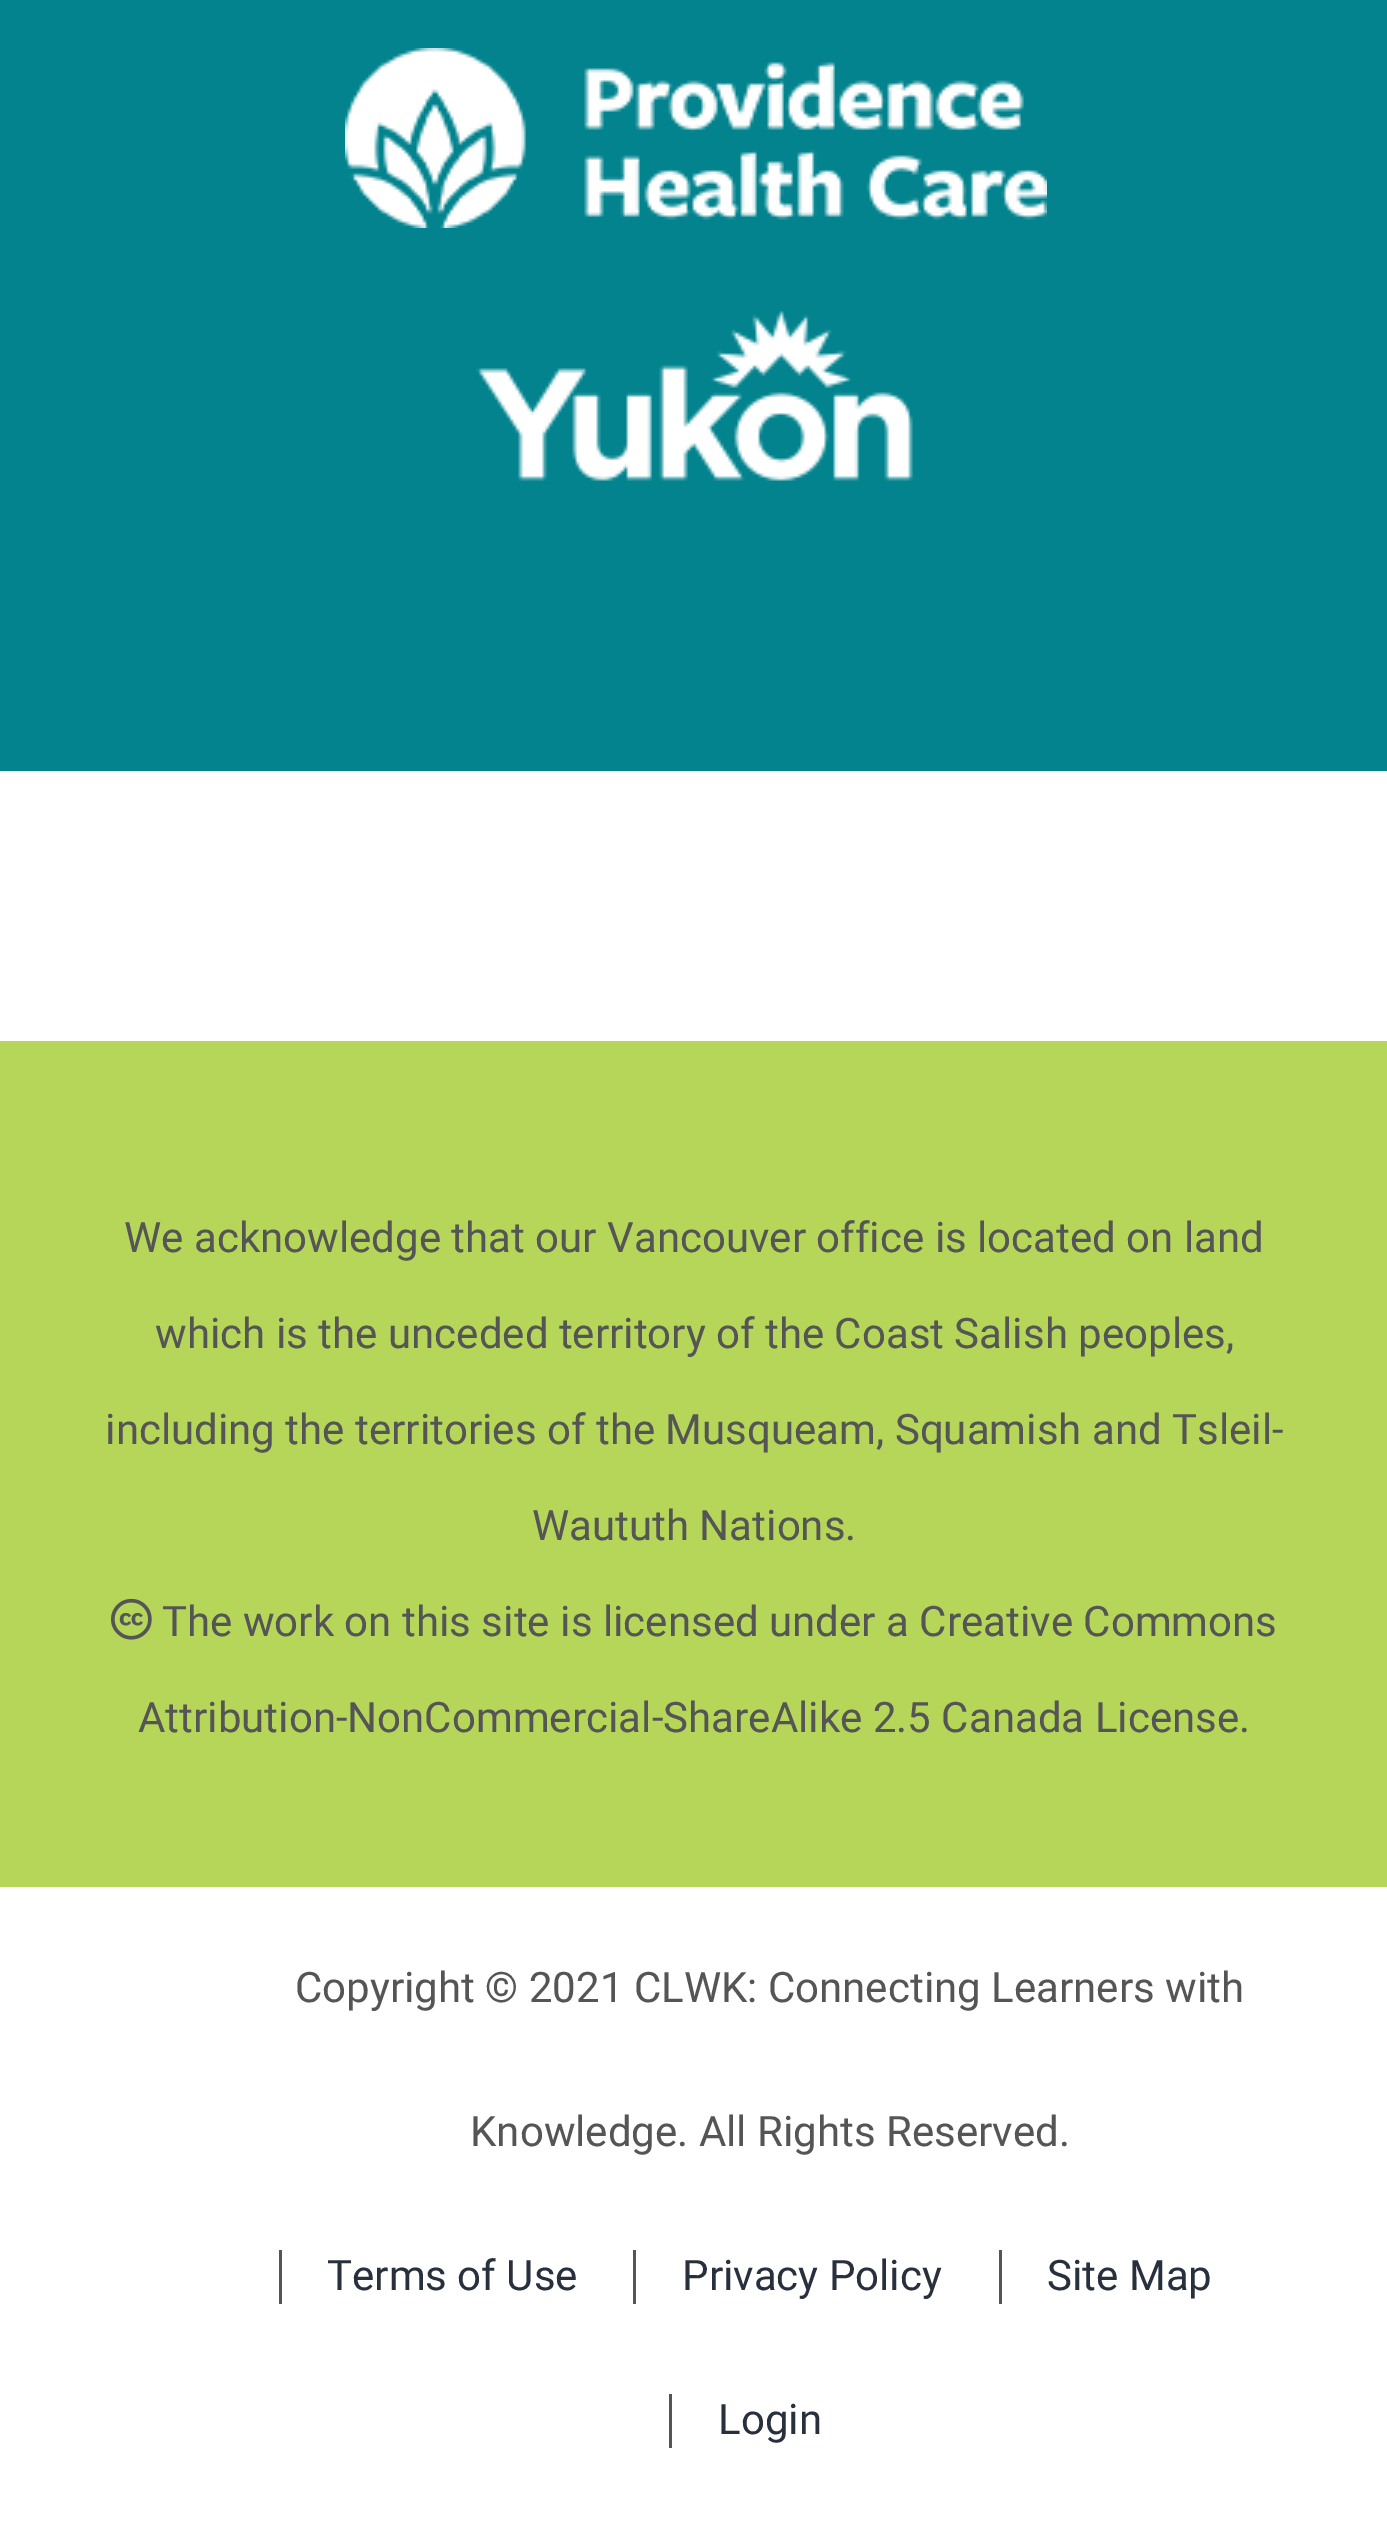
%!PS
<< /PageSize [1387 2536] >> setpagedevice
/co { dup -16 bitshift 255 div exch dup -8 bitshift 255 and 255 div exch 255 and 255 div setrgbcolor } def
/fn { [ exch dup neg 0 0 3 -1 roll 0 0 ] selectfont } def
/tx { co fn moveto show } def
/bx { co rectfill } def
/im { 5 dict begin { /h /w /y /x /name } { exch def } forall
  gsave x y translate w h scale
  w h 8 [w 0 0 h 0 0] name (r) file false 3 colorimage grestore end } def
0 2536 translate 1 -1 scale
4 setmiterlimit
0 0 1387 2536 16#FFFFFF bx
0 0 1387 771 16#02838E bx
(media/1.raw) 345 48 702 180 im
(media/2.raw) 476 310 437 171 im
0 1041 1387 846 16#B6D659 bx
(media/3.raw) 111 1598 41 42 im
279 2250 3 54 16#555555 bx
633 2250 3 54 16#555555 bx
999 2250 3 54 16#555555 bx
669 2394 3 54 16#555555 bx
(We acknowledge that our Vancouver office is located on land) 124 1252 /Heebo-Regular 42 16#555555 tx
(which is the unceded territory of the Coast Salish peoples,) 155 1348 /Heebo-Regular 42 16#555555 tx
(including the territories of the Musqueam, Squamish and Tsleil-) 105 1444 /Heebo-Regular 42 16#555555 tx
(Waututh Nations.) 532 1540 /Heebo-Regular 42 16#555555 tx
(The work on this site is licensed under a Creative Commons) 162 1636 /Heebo-Regular 42 16#555555 tx
(Attribution-NonCommercial-ShareAlike 2.5 Canada License.) 138 1732 /Heebo-Regular 42 16#555555 tx
(Copyright © 2021 CLWK: Connecting Learners with) 295 2002 /Heebo-Regular 42 16#555555 tx
(Knowledge. All Rights Reserved.) 470 2146 /Heebo-Regular 42 16#555555 tx
(Terms of Use) 327 2290 /Heebo-Regular 42 16#28303D tx
(Privacy Policy) 682 2290 /Heebo-Regular 42 16#28303D tx
(Site Map) 1047 2290 /Heebo-Regular 42 16#28303D tx
(Login) 718 2434 /Heebo-Regular 42 16#28303D tx
showpage
